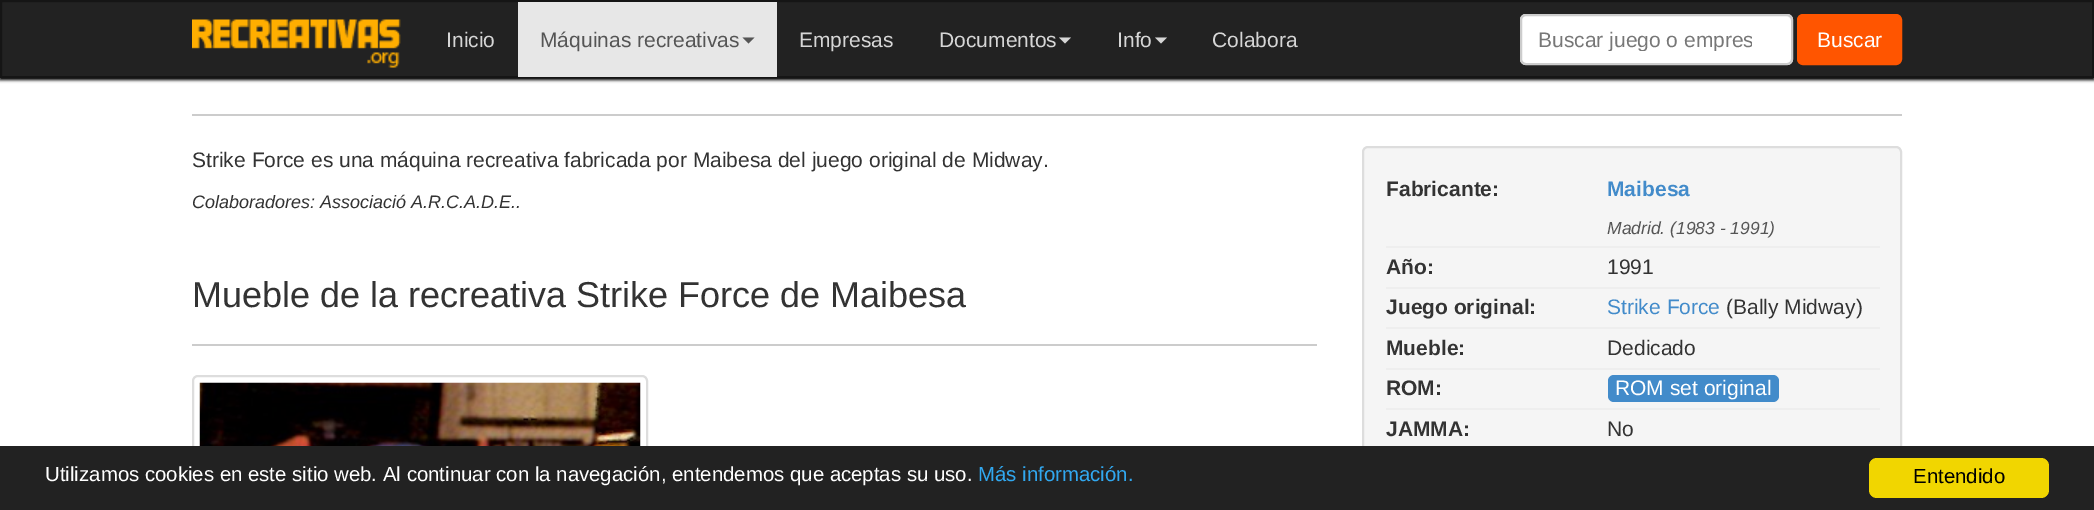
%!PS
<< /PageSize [2094 510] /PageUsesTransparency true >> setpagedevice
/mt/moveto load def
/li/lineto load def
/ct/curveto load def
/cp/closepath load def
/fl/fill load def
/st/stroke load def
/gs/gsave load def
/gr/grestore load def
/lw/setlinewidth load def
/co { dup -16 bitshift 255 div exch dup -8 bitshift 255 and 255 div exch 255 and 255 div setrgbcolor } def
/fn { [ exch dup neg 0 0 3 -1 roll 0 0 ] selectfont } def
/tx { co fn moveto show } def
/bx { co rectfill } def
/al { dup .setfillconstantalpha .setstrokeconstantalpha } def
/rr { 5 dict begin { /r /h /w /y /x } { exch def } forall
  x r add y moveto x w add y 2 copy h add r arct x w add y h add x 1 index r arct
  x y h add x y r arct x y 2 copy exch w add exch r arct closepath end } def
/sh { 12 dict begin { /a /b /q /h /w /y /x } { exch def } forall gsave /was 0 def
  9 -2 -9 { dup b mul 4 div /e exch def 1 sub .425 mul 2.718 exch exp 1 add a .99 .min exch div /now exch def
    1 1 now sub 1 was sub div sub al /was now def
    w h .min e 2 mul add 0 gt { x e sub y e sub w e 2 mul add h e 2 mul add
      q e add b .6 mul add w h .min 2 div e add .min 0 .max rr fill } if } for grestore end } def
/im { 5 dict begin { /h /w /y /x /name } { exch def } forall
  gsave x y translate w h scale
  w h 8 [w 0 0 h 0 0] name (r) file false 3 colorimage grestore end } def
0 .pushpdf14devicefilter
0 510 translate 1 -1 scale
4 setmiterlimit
0 0 2094 510 16#FFFFFF bx
16#000000 co
0 2 2094 78 0 1.5 1 sh
16#222222 co
1 1 mt 2093 1 li 2093 77 li 1 77 li cp gs fl gr
16#151515 co
2 lw
st
(media/1.raw) 192 19 209 49 im
518 2 259 75 16#E7E7E7 bx
16#555555 co
742.5 37.5 mt 754.5 37.5 li 748.5 43.5 li cp fl
16#D6D6D6 co
1059 37.5 mt 1071 37.5 li 1065 43.5 li cp fl
1155 37.5 mt 1167 37.5 li 1161 43.5 li cp fl
16#FFFFFF co
1520 14 273 51 6 rr fl
16#ECECEC co
1526 16 mt 1786 16 li 1789 16 1791 19 1791 21 ct 1791 18 1789 15 1786 15 ct 1526 15 li 1523 15 1521 18 1521 21 ct 1521 19 1523 16 1526 16 ct cp fl
16#CCCCCC co
1521 15 271 49 5 rr st
16#FF5500 co
1798 15 103 49 5 rr gs fl gr
st
192 114 1710 2 16#CCCCCC bx
192 344 1125 2 16#CCCCCC bx
16#DDDDDD co
193 376 454 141 5 rr st
(media/2.raw) 199 382 442 64 im
16#F5F5F5 co
1363 147 538 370 5 rr gs fl gr
16#DDDDDD co
st
1386 246 494 2 16#EEEEEE bx
1386 287 494 2 16#EEEEEE bx
1386 327 494 2 16#EEEEEE bx
1386 368 494 2 16#EEEEEE bx
16#428BCA co
1608 375 171 27 6 rr fl
1386 408 494 2 16#EEEEEE bx
0 446 2094 64 16#222222 bx
16#F1D600 co
1869 458 180 40 8 rr fl
(Inicio) 446 47 /LiberationSans-Regular 21 16#D6D6D6 tx
(Máquinas recreativas) 540 47 /LiberationSans-Regular 21 16#555555 tx
(Empresas) 799 47 /LiberationSans-Regular 21 16#D6D6D6 tx
(Documentos) 939 47 /LiberationSans-Regular 21 16#D6D6D6 tx
(Info) 1117 47 /LiberationSans-Regular 21 16#D6D6D6 tx
(Colabora) 1212 47 /LiberationSans-Regular 21 16#D6D6D6 tx
gs
1539 27 213 24 rectclip
(Buscar juego o empres) 1538 47 /LiberationSans-Regular 21 16#777777 tx
gr
(Buscar) 1817 47 /LiberationSans-Regular 21 16#FFFFFF tx
(Strike Force es una máquina recreativa fabricada por Maibesa del juego original de Midway.) 192 167 /LiberationSans-Regular 21 16#333333 tx
(Colaboradores: Associació A.R.C.A.D.E..) 192 208 /LiberationSans-Italic 18 16#333333 tx
(Mueble de la recreativa Strike Force de Maibesa) 192 307 /LiberationSans-Regular 36 16#333333 tx
(Fabricante:) 1386 196 /LiberationSans-Bold 21 16#333333 tx
(Maibesa) 1607 196 /LiberationSans-Bold 21 16#428BCA tx
(Madrid. \(1983 - 1991\)) 1607 234 /LiberationSans-Italic 17.5 16#555555 tx
(Año:) 1386 274 /LiberationSans-Bold 21 16#333333 tx
(1991) 1607 274 /LiberationSans-Regular 21 16#333333 tx
(Juego original:) 1386 314 /LiberationSans-Bold 21 16#333333 tx
(Strike Force) 1607 314 /LiberationSans-Regular 21 16#428BCA tx
(\(Bally Midway\)) 1726 314 /LiberationSans-Regular 21 16#333333 tx
(Mueble:) 1386 355 /LiberationSans-Bold 21 16#333333 tx
(Dedicado) 1607 355 /LiberationSans-Regular 21 16#333333 tx
(ROM:) 1386 395 /LiberationSans-Bold 21 16#333333 tx
(ROM set original) 1615 395 /LiberationSans-Regular 21 16#FFFFFF tx
(JAMMA:) 1386 436 /LiberationSans-Bold 21 16#333333 tx
(No) 1607 436 /LiberationSans-Regular 21 16#333333 tx
(Utilizamos cookies en este sitio web. Al continuar con la navegación, entendemos que aceptas su uso.) 45 481 /LiberationSans-Regular 20.4 16#FFFFFF tx
(Más información.) 978 481 /LiberationSans-Regular 20.4 16#31A8F0 tx
(Entendido) 1913 483 /LiberationSans-Regular 20.4 16#000000 tx
.poppdf14devicefilter showpage
